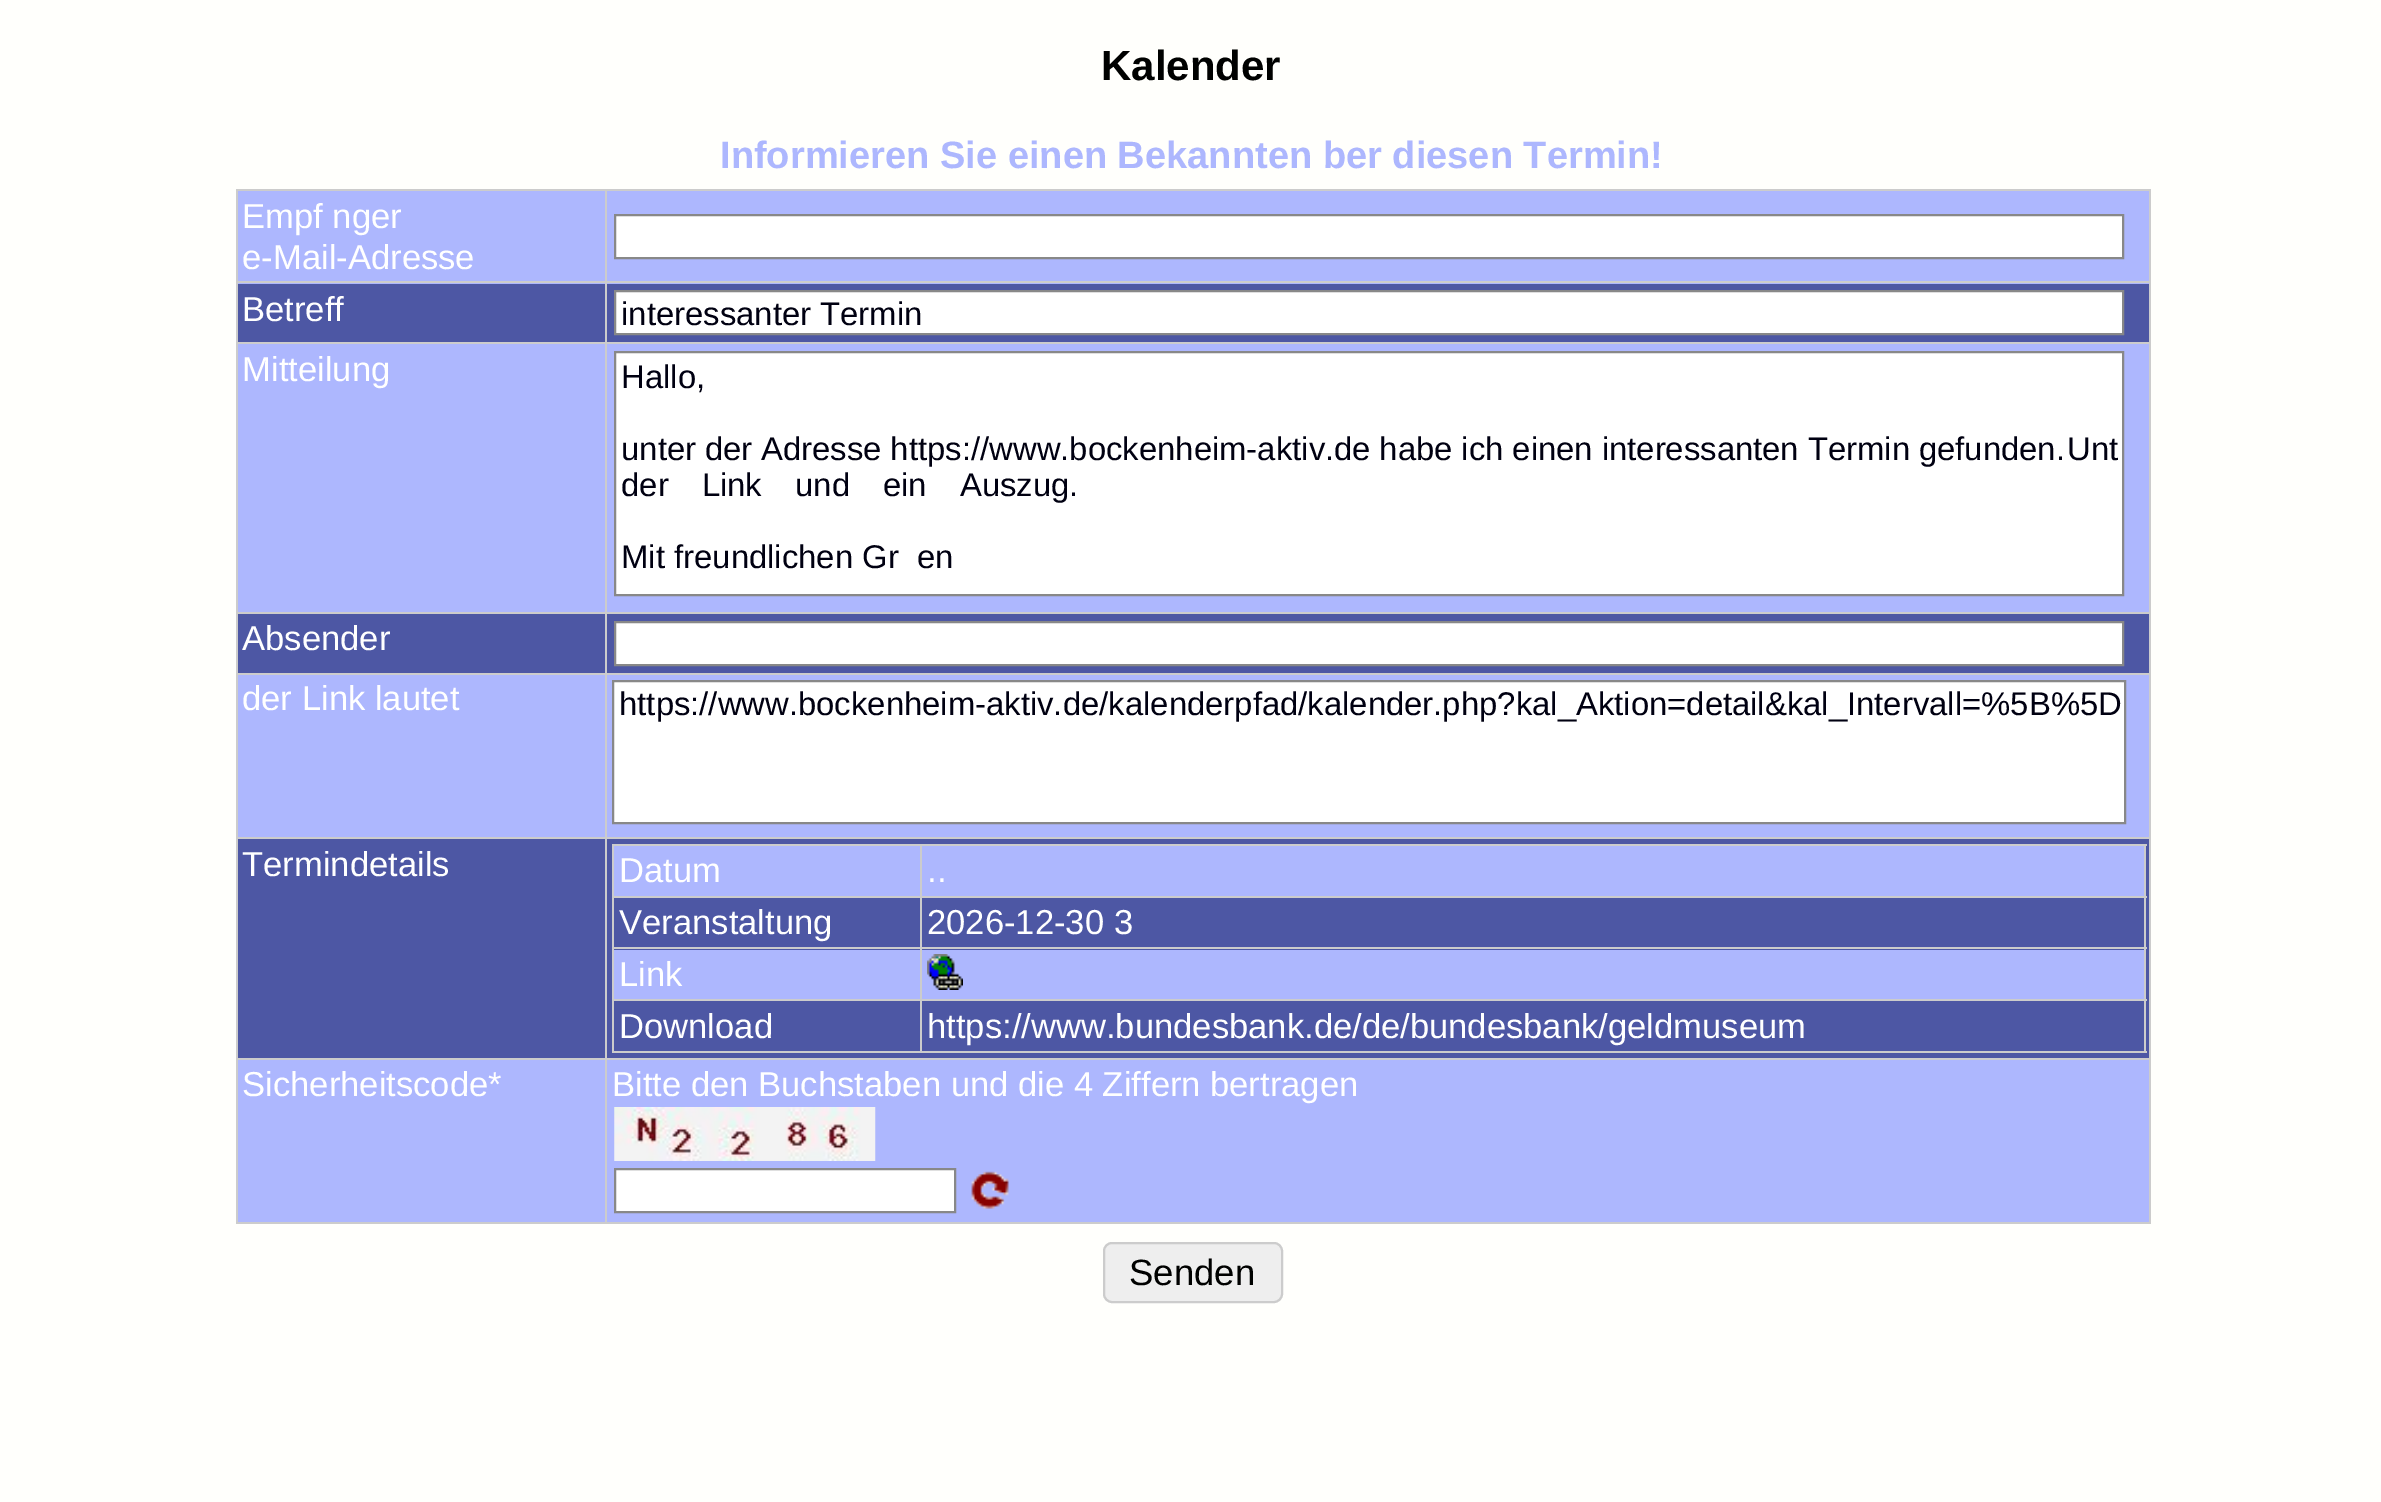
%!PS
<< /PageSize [2381 1502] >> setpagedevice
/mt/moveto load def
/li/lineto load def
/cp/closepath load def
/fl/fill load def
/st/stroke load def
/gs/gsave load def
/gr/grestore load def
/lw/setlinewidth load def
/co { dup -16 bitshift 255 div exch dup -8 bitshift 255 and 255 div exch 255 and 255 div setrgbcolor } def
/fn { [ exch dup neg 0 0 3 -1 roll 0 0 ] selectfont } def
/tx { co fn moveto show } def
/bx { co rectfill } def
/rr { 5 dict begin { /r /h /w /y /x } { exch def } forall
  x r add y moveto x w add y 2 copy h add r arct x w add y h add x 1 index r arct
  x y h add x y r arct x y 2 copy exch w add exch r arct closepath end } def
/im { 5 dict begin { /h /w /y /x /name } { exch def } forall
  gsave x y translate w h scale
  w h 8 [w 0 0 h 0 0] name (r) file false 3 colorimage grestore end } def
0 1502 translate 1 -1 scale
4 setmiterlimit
0 0 2381 1502 16#FFFFFC bx
238 191 1911 93 16#ADB7FE bx
236 281 1915 2 16#CCCCCC bx
605 189 1546 2 16#CCCCCC bx
238 284 1911 58 16#4D57A4 bx
236 342 1915 2 16#CCCCCC bx
238 344 1911 268 16#ADB7FE bx
236 612 1915 2 16#CCCCCC bx
238 614 1911 59 16#4D57A4 bx
236 673 1915 2 16#CCCCCC bx
238 675 1911 162 16#ADB7FE bx
236 837 1915 2 16#CCCCCC bx
238 839 1911 219 16#4D57A4 bx
236 1058 1915 2 16#CCCCCC bx
238 1060 1911 162 16#ADB7FE bx
236 1222 1915 2 16#CCCCCC bx
605 281 2 943 16#CCCCCC bx
605 189 2 95 16#CCCCCC bx
236 189 372 2 16#CCCCCC bx
236 281 2 943 16#CCCCCC bx
236 189 2 95 16#CCCCCC bx
2149 281 2 943 16#CCCCCC bx
2149 189 2 95 16#CCCCCC bx
16#FFFFFF co
615 215 mt 2123 215 li 2123 258 li 615 258 li cp gs fl gr
16#888888 co
2 lw
st
16#FFFFFF co
615 291 mt 2123 291 li 2123 334 li 615 334 li cp gs fl gr
16#888888 co
st
16#FFFFFF co
615 352 mt 2123 352 li 2123 595 li 615 595 li cp gs fl gr
16#888888 co
st
16#FFFFFF co
615 622 mt 2123 622 li 2123 665 li 615 665 li cp gs fl gr
16#888888 co
st
16#FFFFFF co
613 681 mt 2125 681 li 2125 823 li 613 823 li cp gs fl gr
16#888888 co
st
614 846 1530 50 16#ADB7FE bx
612 896 1535 2 16#CCCCCC bx
920 844 1227 2 16#CCCCCC bx
612 947 1535 2 16#CCCCCC bx
614 950 1530 49 16#ADB7FE bx
612 999 1535 2 16#CCCCCC bx
612 1051 1535 2 16#CCCCCC bx
920 896 2 157 16#CCCCCC bx
920 844 2 54 16#CCCCCC bx
612 844 311 2 16#CCCCCC bx
612 896 2 157 16#CCCCCC bx
612 844 2 54 16#CCCCCC bx
2144 896 2 157 16#CCCCCC bx
2144 844 2 54 16#CCCCCC bx
(media/1.raw) 927 954 36 36 im
(media/2.raw) 614 1107 262 54 im
16#FFFFFF co
615 1169 mt 955 1169 li 955 1212 li 615 1212 li cp gs fl gr
16#888888 co
st
(media/3.raw) 971 1171 38 38 im
16#EEEEEE co
1104 1243 178 59 8 rr gs fl gr
16#CCCCCC co
st
(Kalender) 1101 80 /LiberationSans-Bold 42 16#000100 tx
(Informieren Sie einen Bekannten ber diesen Termin!) 720 168 /LiberationSans-Bold 38.05 16#ADB7FE tx
(Empf nger) 242 228 /LiberationSans-Regular 34.6 16#FFFFFF tx
(e-Mail-Adresse) 242 269 /LiberationSans-Regular 34.6 16#FFFFFF tx
(Betreff) 242 321 /LiberationSans-Regular 34.6 16#FFFFFF tx
(interessanter Termin) 621 325 /LiberationSans-Regular 32.85 16#000011 tx
(Mitteilung) 242 381 /LiberationSans-Regular 34.6 16#FFFFFF tx
(Hallo,) 621 388 /LiberationSans-Regular 32.85 16#000011 tx
621 460 mt -.25 0 32 (unter der Adresse https://www.bockenheim-aktiv.de habe ich einen interessanten Termin gefunden.) widthshow
(Unt) 2067 460 /LiberationSans-Regular 32.85 16#000011 tx
621 496 mt 24 0 32 (der Link und ein Auszug.) widthshow
(Mit freundlichen Gr  en) 621 568 /LiberationSans-Regular 32.85 16#000011 tx
(Absender) 242 650 /LiberationSans-Regular 34.6 16#FFFFFF tx
(der Link lautet) 242 710 /LiberationSans-Regular 34.6 16#FFFFFF tx
(https://www.bockenheim-aktiv.de/kalenderpfad/kalender.php?kal_Aktion=detail&kal_Intervall=%5B%5D) 619 715 /LiberationSans-Regular 32.85 16#000011 tx
(Termindetails) 242 876 /LiberationSans-Regular 34.6 16#FFFFFF tx
(Datum) 619 882 /LiberationSans-Regular 34.6 16#FFFFFF tx
(..) 927 882 /LiberationSans-Regular 34.6 16#FFFFFF tx
(Veranstaltung) 619 934 /LiberationSans-Regular 34.6 16#FFFFFF tx
(2026-12-30 3) 927 934 /LiberationSans-Regular 34.6 16#FFFFFF tx
(Link) 619 986 /LiberationSans-Regular 34.6 16#FFFFFF tx
(Download) 619 1038 /LiberationSans-Regular 34.6 16#FFFFFF tx
(https://www.bundesbank.de/de/bundesbank/geldmuseum) 927 1038 /LiberationSans-Regular 34.6 16#FFFFFF tx
(Sicherheitscode*) 242 1096 /LiberationSans-Regular 34.6 16#FFFFFF tx
(Bitte den Buchstaben und die 4 Ziffern) 612 1096 /LiberationSans-Regular 34.6 16#FFFFFF tx
(bertragen) 1210 1096 /LiberationSans-Regular 34.6 16#FFFFFF tx
(Senden) 1129 1285 /LiberationSans-Regular 36.5 16#000100 tx
showpage
